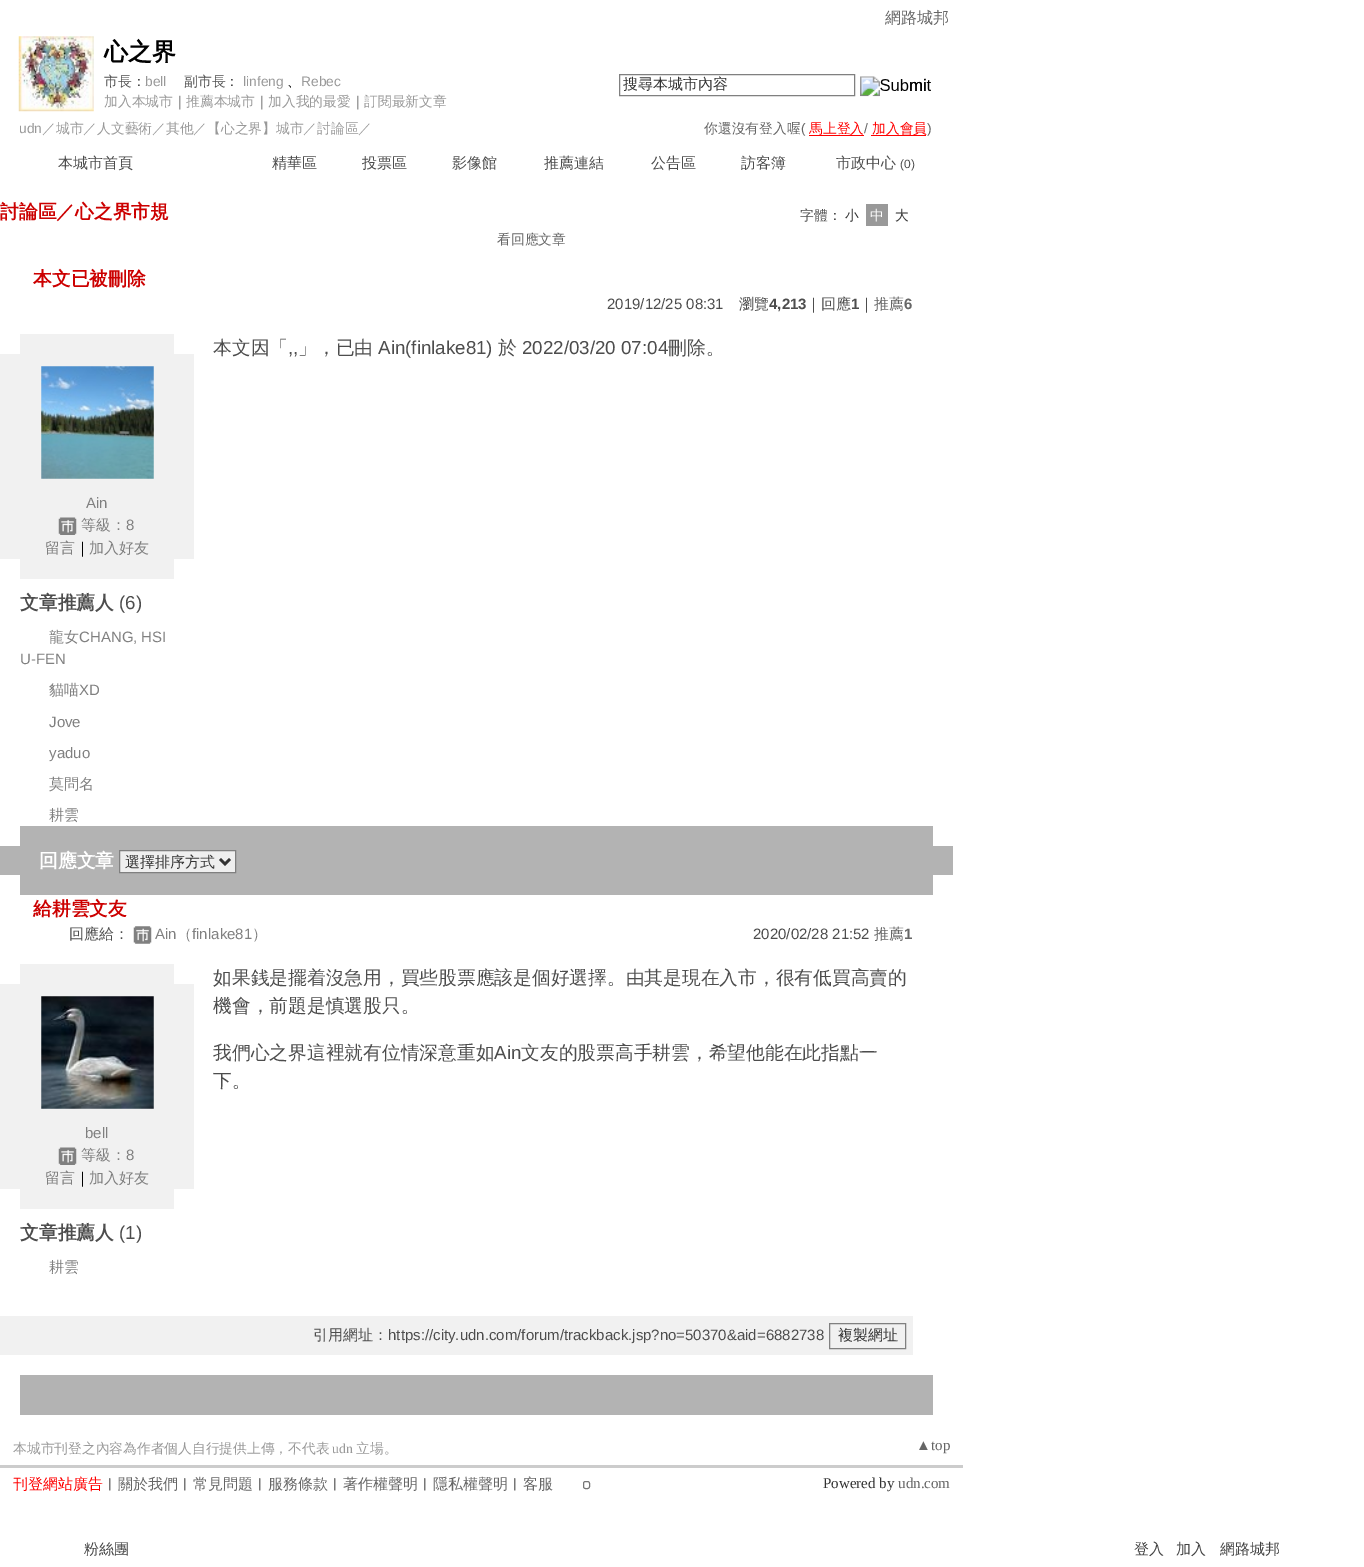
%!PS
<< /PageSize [1364 1567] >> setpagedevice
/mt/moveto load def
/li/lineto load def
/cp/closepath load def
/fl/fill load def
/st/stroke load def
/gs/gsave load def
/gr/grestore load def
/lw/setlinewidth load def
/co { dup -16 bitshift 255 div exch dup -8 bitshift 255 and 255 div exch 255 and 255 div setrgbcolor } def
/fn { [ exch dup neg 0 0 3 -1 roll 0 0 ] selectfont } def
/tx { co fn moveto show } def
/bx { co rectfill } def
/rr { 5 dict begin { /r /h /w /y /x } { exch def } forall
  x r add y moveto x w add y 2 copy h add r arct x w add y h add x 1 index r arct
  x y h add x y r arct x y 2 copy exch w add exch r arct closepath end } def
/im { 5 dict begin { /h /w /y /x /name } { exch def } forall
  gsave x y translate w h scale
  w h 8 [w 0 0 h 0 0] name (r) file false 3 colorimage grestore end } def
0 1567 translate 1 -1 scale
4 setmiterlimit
0 0 1364 1567 16#FFFFFF bx
(media/1.raw) 18 36 76 76 im
16#808080 co
619.5 74.5 235 21 rectstroke
(media/2.raw) 860 76 71 21 im
809 135 55 1 16#FF0000 bx
871 135 55 1 16#FF0000 bx
866 204 22 22 16#999999 bx
20 334 154 20 16#F1F1F1 bx
0 354 194 205 16#F1F1F1 bx
(media/3.raw) 41 366 113 113 im
(media/4.raw) 58 517 19 18 im
20 559 154 20 16#F1F1F1 bx
20 826 913 20 16#B3B3B3 bx
0 846 953 29 16#B3B3B3 bx
16#EFEFEF co
119.5 850.5 mt 235.5 850.5 li 235.5 872.5 li 119.5 872.5 li cp gs fl gr
16#808080 co
st
16#333333 co
2.5 lw
220 859 mt 225 864 li 230 859 li st
20 875 913 20 16#B3B3B3 bx
(media/5.raw) 133 926 19 18 im
20 964 154 20 16#F1F1F1 bx
0 984 194 205 16#F1F1F1 bx
(media/6.raw) 41 996 113 113 im
(media/4.raw) 58 1147 19 18 im
20 1189 154 20 16#F1F1F1 bx
0 1316 913 39 16#F1F1F1 bx
16#808080 co
1 lw
829.5 1323.5 76 25 rectstroke
20 1375 913 40 16#B3B3B3 bx
0 1465 963 3 16#CCCCCC bx
16#767676 co
583.5 1481.5 6 7 2 rr st
(網路城邦) 885 23 /WenQuanYiZenHei-Medium 16 16#666666 tx
(心之界) 104 60 /WenQuanYiZenHei-Bold 24 16#000000 tx
(市長：) 104 86 /WenQuanYiZenHei-Medium 13.75 16#4D4D4D tx
(bell) 145 86 /LiberationSans-Regular 13.75 16#999999 tx
(副市長：) 184 86 /WenQuanYiZenHei-Medium 13.75 16#4D4D4D tx
(linfeng) 243 86 /LiberationSans-Regular 13.75 16#999999 tx
(、) 287 86 /WenQuanYiZenHei-Medium 13.75 16#000000 tx
(Rebec) 301 86 /LiberationSans-Regular 13.75 16#999999 tx
(加入本城市) 104 106 /WenQuanYiZenHei-Medium 13.75 16#999999 tx
(｜) 173 106 /WenQuanYiZenHei-Medium 13.75 16#4D4D4D tx
(推薦本城市) 186 106 /WenQuanYiZenHei-Medium 13.75 16#999999 tx
(｜) 255 106 /WenQuanYiZenHei-Medium 13.75 16#4D4D4D tx
(加入我的最愛) 268 106 /WenQuanYiZenHei-Medium 13.75 16#999999 tx
(｜) 351 106 /WenQuanYiZenHei-Medium 13.75 16#4D4D4D tx
(訂閱最新文章) 364 106 /WenQuanYiZenHei-Medium 13.75 16#999999 tx
(搜尋本城市內容) 623 89 /WenQuanYiZenHei-Medium 15 16#333333 tx
(mi) 909 91 /LiberationSans-Regular 17 16#000000 tx
(udn) 19 133 /LiberationSans-Regular 13.75 16#999999 tx
(／城市／人文藝術／其他／【心之界】城市／討論區／) 42 133 /WenQuanYiZenHei-Medium 13.75 16#999999 tx
(你還沒有登入喔) 704 133 /WenQuanYiZenHei-Medium 13.75 16#666666 tx
(\() 801 133 /LiberationSans-Regular 13.75 16#666666 tx
(馬上登入) 809 133 /WenQuanYiZenHei-Medium 13.75 16#FF0000 tx
(/) 864 133 /LiberationSans-Regular 13.75 16#666666 tx
(加入會員) 872 133 /WenQuanYiZenHei-Medium 13.75 16#FF0000 tx
(\)) 927 133 /LiberationSans-Regular 13.75 16#666666 tx
(本城市首頁) 58 168 /WenQuanYiZenHei-Medium 15 16#4D4D4D tx
(精華區) 272 168 /WenQuanYiZenHei-Medium 15 16#4D4D4D tx
(投票區) 362 168 /WenQuanYiZenHei-Medium 15 16#4D4D4D tx
(影像館) 452 168 /WenQuanYiZenHei-Medium 15 16#4D4D4D tx
(推薦連結) 544 168 /WenQuanYiZenHei-Medium 15 16#4D4D4D tx
(公告區) 651 168 /WenQuanYiZenHei-Medium 15 16#4D4D4D tx
(訪客簿) 741 168 /WenQuanYiZenHei-Medium 15 16#4D4D4D tx
(市政中心) 836 168 /WenQuanYiZenHei-Medium 15 16#4D4D4D tx
(\(0\)) 900 168 /LiberationSans-Regular 12 16#4D4D4D tx
(討論區／心之界市規) 0 218 /WenQuanYiZenHei-Bold 18.75 16#CC0000 tx
(字體：) 800 220 /WenQuanYiZenHei-Medium 13.75 16#4D4D4D tx
(小) 845 220 /WenQuanYiZenHei-Medium 13.75 16#333333 tx
(中) 870 220 /WenQuanYiZenHei-Medium 13.75 16#FFFFFF tx
(大) 895 220 /WenQuanYiZenHei-Medium 13.75 16#333333 tx
(看回應文章) 497 244 /WenQuanYiZenHei-Medium 13.75 16#666666 tx
(本文已被刪除) 33 285 /WenQuanYiZenHei-Bold 18.75 16#CC0000 tx
(2019/12/25 08:31) 607 309 /LiberationSans-Regular 15 16#4D4D4D tx
(瀏覽) 739 309 /WenQuanYiZenHei-Medium 15 16#4D4D4D tx
(4,213) 769 309 /LiberationSans-Bold 15 16#4D4D4D tx
(｜回應) 806 309 /WenQuanYiZenHei-Medium 15 16#4D4D4D tx
(1) 851 309 /LiberationSans-Bold 15 16#4D4D4D tx
(｜) 859 309 /WenQuanYiZenHei-Medium 15 16#4D4D4D tx
(推薦) 874 309 /WenQuanYiZenHei-Medium 15 16#666666 tx
(6) 904 309 /LiberationSans-Bold 15 16#666666 tx
(本文因「) 213 354 /WenQuanYiZenHei-Medium 18.75 16#4D4D4D tx
(,,) 288 354 /LiberationSans-Regular 18.75 16#4D4D4D tx
(」，已由) 298 354 /WenQuanYiZenHei-Medium 18.75 16#4D4D4D tx
(Ain\(finlake81\)) 378 354 /LiberationSans-Regular 18.75 16#4D4D4D tx
(於) 498 354 /WenQuanYiZenHei-Medium 18.75 16#4D4D4D tx
(2022/03/20 07:04) 522 354 /LiberationSans-Regular 18.75 16#4D4D4D tx
(刪除。) 668 354 /WenQuanYiZenHei-Medium 18.75 16#4D4D4D tx
(Ain) 86 508 /LiberationSans-Regular 15 16#808080 tx
(等級：) 81 530 /WenQuanYiZenHei-Medium 15 16#808080 tx
(8) 126 530 /LiberationSans-Regular 15 16#808080 tx
(留言) 45 553 /WenQuanYiZenHei-Medium 15 16#808080 tx
(｜) 75 553 /WenQuanYiZenHei-Medium 15 16#000000 tx
(加入好友) 89 553 /WenQuanYiZenHei-Medium 15 16#808080 tx
(文章推薦人) 20 609 /WenQuanYiZenHei-Bold 18.75 16#4D4D4D tx
(\(6\)) 119 609 /LiberationSans-Regular 18.75 16#4D4D4D tx
(龍女) 49 642 /WenQuanYiZenHei-Medium 15 16#808080 tx
(CHANG, HSI) 79 642 /LiberationSans-Regular 15 16#808080 tx
(U-FEN) 20 664 /LiberationSans-Regular 15 16#808080 tx
(貓喵) 49 695 /WenQuanYiZenHei-Medium 15 16#808080 tx
(XD) 79 695 /LiberationSans-Regular 15 16#808080 tx
(Jove) 49 727 /LiberationSans-Regular 15 16#808080 tx
(yaduo) 49 758 /LiberationSans-Regular 15 16#808080 tx
(莫問名) 49 789 /WenQuanYiZenHei-Medium 15 16#808080 tx
(耕雲) 49 820 /WenQuanYiZenHei-Medium 15 16#808080 tx
(回應文章) 39 867 /WenQuanYiZenHei-Bold 18.75 16#FFFFFF tx
(選擇排序方式) 125 867 /WenQuanYiZenHei-Medium 15 16#333333 tx
(給耕雲文友) 33 915 /WenQuanYiZenHei-Bold 18.75 16#CC0000 tx
(回應給：) 69 939 /WenQuanYiZenHei-Medium 15 16#4D4D4D tx
(Ain) 155 939 /LiberationSans-Regular 15 16#808080 tx
(（) 177 939 /WenQuanYiZenHei-Medium 15 16#808080 tx
(finlake81) 192 939 /LiberationSans-Regular 15 16#808080 tx
(）) 252 939 /WenQuanYiZenHei-Medium 15 16#808080 tx
(2020/02/28 21:52) 753 939 /LiberationSans-Regular 15 16#4D4D4D tx
(推薦) 874 939 /WenQuanYiZenHei-Medium 15 16#666666 tx
(1) 904 939 /LiberationSans-Bold 15 16#666666 tx
(如果銭是擺着沒急用，買些股票應該是個好選擇。由其是現在入市，很有低買高賣的) 213 984 /WenQuanYiZenHei-Medium 18.75 16#4D4D4D tx
(機會，前題是慎選股只。) 213 1012 /WenQuanYiZenHei-Medium 18.75 16#4D4D4D tx
(我們心之界這裡就有位情深意重如) 213 1059 /WenQuanYiZenHei-Medium 18.75 16#4D4D4D tx
(Ain) 494 1059 /LiberationSans-Regular 18.75 16#4D4D4D tx
(文友的股票高手耕雲，希望他能在此指點一) 521 1059 /WenQuanYiZenHei-Medium 18.75 16#4D4D4D tx
(下。) 213 1087 /WenQuanYiZenHei-Medium 18.75 16#4D4D4D tx
(bell) 85 1138 /LiberationSans-Regular 15 16#808080 tx
(等級：) 81 1160 /WenQuanYiZenHei-Medium 15 16#808080 tx
(8) 126 1160 /LiberationSans-Regular 15 16#808080 tx
(留言) 45 1183 /WenQuanYiZenHei-Medium 15 16#808080 tx
(｜) 75 1183 /WenQuanYiZenHei-Medium 15 16#000000 tx
(加入好友) 89 1183 /WenQuanYiZenHei-Medium 15 16#808080 tx
(文章推薦人) 20 1239 /WenQuanYiZenHei-Bold 18.75 16#4D4D4D tx
(\(1\)) 119 1239 /LiberationSans-Regular 18.75 16#4D4D4D tx
(耕雲) 49 1272 /WenQuanYiZenHei-Medium 15 16#808080 tx
(引用網址：) 313 1340 /WenQuanYiZenHei-Medium 15 16#4D4D4D tx
(https://city.udn.com/forum/trackback.jsp?no=50370&aid=6882738) 388 1340 /LiberationSans-Regular 15 16#4D4D4D tx
(複製網址) 838 1340 /WenQuanYiZenHei-Medium 15 16#333333 tx
(本城市刊登之內容為作者個人自行提供上傳，不代表) 13 1453 /WenQuanYiZenHei-Medium 13.75 16#999999 tx
(udn) 332 1453 /LiberationSerif-Regular 13.75 16#999999 tx
(立場。) 356 1453 /WenQuanYiZenHei-Medium 13.75 16#999999 tx
(▲top) 916 1450 /LiberationSerif-Regular 15 16#666666 tx
(刊登網站廣告) 13 1489 /WenQuanYiZenHei-Medium 15 16#FF0000 tx
(︱) 103 1489 /WenQuanYiZenHei-Medium 15 16#000000 tx
(關於我們) 118 1489 /WenQuanYiZenHei-Medium 15 16#666666 tx
(︱) 178 1489 /WenQuanYiZenHei-Medium 15 16#000000 tx
(常見問題) 193 1489 /WenQuanYiZenHei-Medium 15 16#666666 tx
(︱) 253 1489 /WenQuanYiZenHei-Medium 15 16#000000 tx
(服務條款) 268 1489 /WenQuanYiZenHei-Medium 15 16#666666 tx
(︱) 328 1489 /WenQuanYiZenHei-Medium 15 16#000000 tx
(著作權聲明) 343 1489 /WenQuanYiZenHei-Medium 15 16#666666 tx
(︱) 418 1489 /WenQuanYiZenHei-Medium 15 16#000000 tx
(隱私權聲明) 433 1489 /WenQuanYiZenHei-Medium 15 16#666666 tx
(︱) 508 1489 /WenQuanYiZenHei-Medium 15 16#000000 tx
(客服) 523 1489 /WenQuanYiZenHei-Medium 15 16#666666 tx
(Powered by) 823 1488 /LiberationSerif-Regular 15 16#333333 tx
(udn.com) 898 1488 /LiberationSerif-Regular 15 16#666666 tx
(粉絲團) 84 1554 /WenQuanYiZenHei-Medium 15 16#444444 tx
(登入) 1134 1554 /WenQuanYiZenHei-Medium 15 16#444444 tx
(加入) 1176 1554 /WenQuanYiZenHei-Medium 15 16#444444 tx
(網路城邦) 1220 1554 /WenQuanYiZenHei-Medium 15 16#444444 tx
showpage
